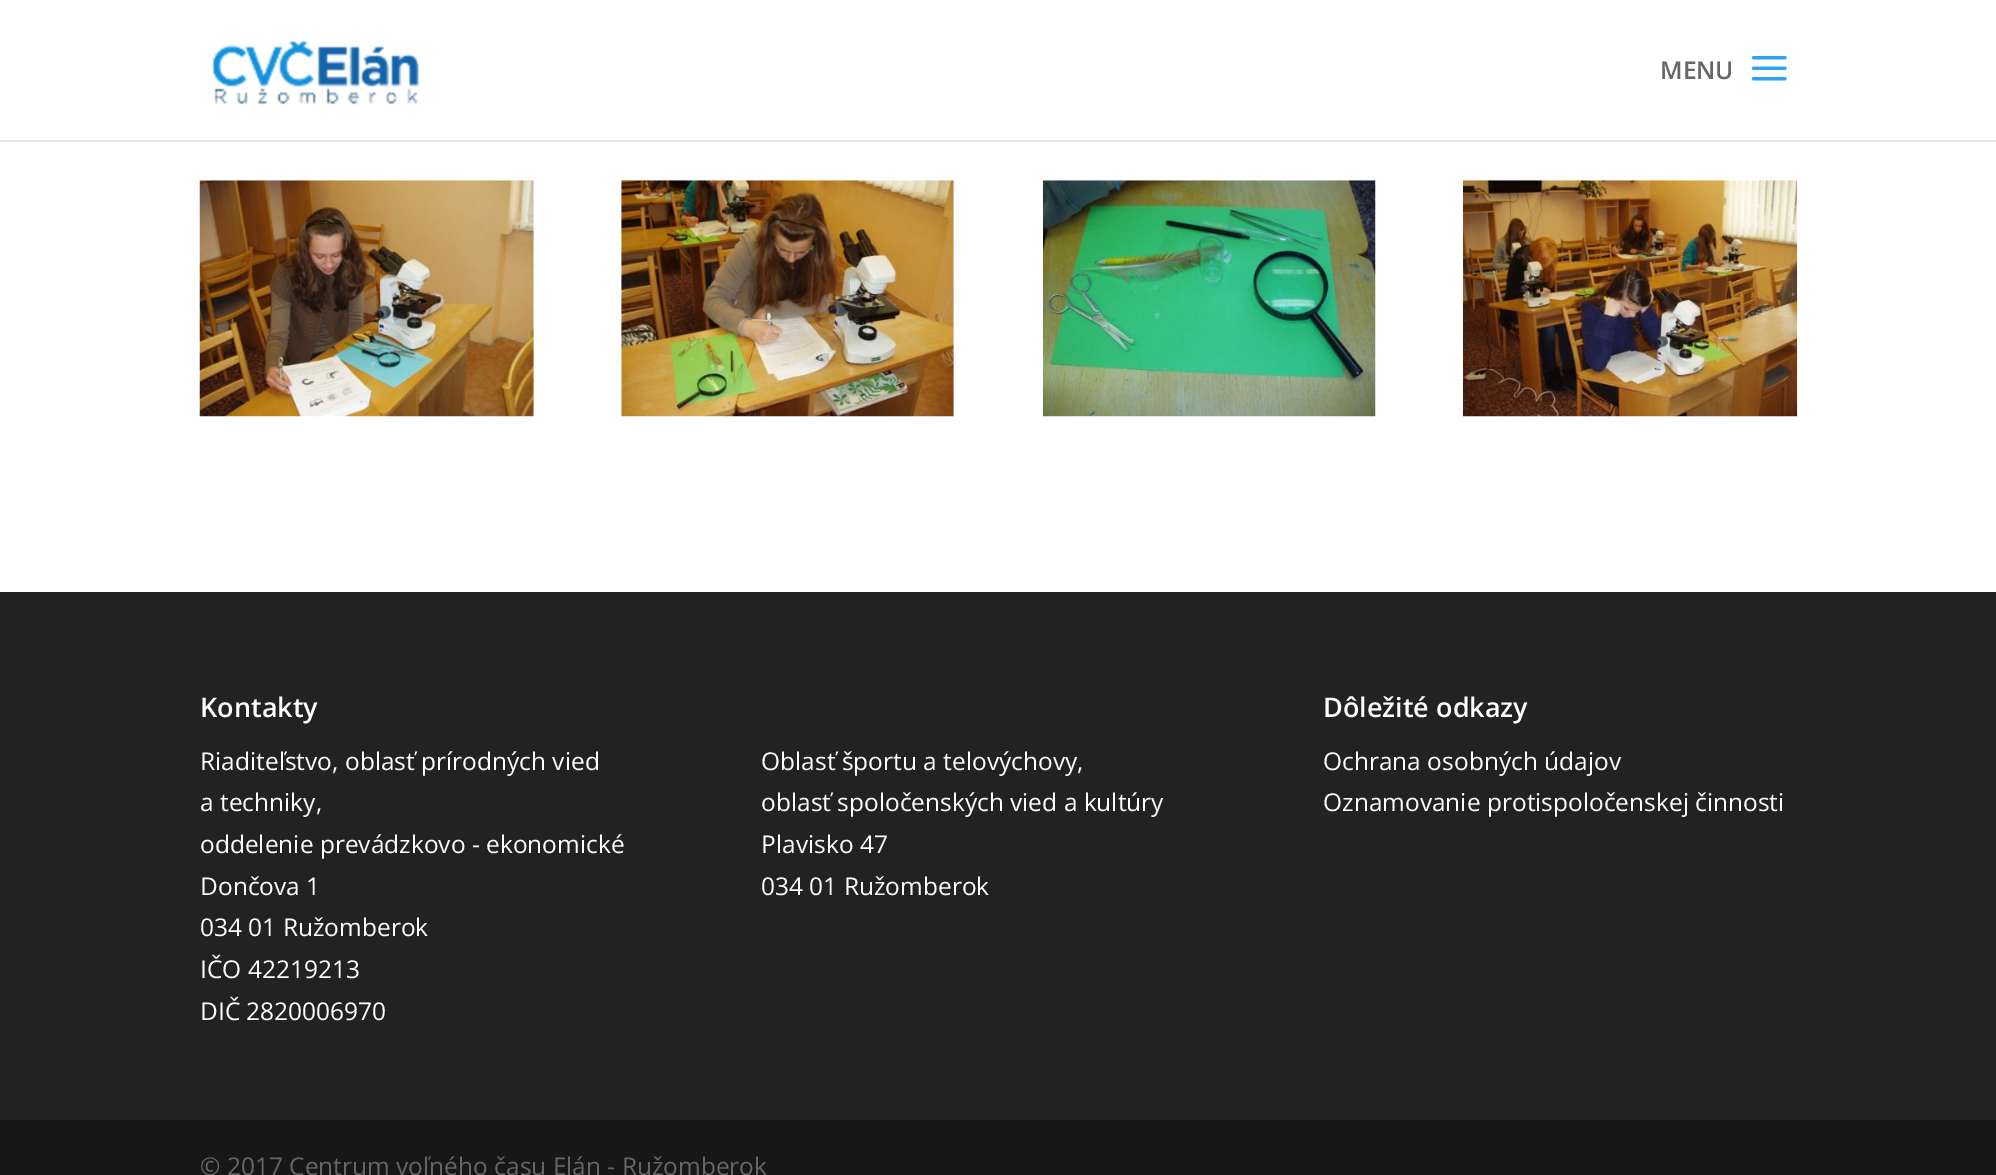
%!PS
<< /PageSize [1996 1175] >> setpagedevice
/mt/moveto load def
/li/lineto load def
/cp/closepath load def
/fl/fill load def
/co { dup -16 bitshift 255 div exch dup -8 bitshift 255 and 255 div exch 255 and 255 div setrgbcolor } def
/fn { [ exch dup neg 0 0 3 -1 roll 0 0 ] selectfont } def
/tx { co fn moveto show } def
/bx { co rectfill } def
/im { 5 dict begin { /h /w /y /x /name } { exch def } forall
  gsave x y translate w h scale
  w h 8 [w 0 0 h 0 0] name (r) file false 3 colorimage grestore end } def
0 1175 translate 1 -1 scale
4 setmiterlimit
0 0 1996 1175 16#FFFFFF bx
16#E6E6E6 co
0 140 mt 0 142 li 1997 142 li 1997 2 li 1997 140 li cp fl
(media/1.raw) 211 41 208 64 im
(media/2.raw) 1751 56 36 25 im
(media/3.raw) 199 180 335 237 im
(media/4.raw) 621 180 333 237 im
(media/5.raw) 1043 180 333 237 im
(media/6.raw) 1463 180 335 237 im
0 592 1996 528 16#222222 bx
0 1120 1996 55 16#171717 bx
(MENU) 1660 79 /OpenSans-SemiBold 24.5 16#666666 tx
(Kontakty) 200 717 /OpenSans-SemiBold 27 16#FFFFFF tx
(Riaditeľstvo, oblasť prírodných vied) 200 770 /OpenSans-Regular 24.5 16#FFFFFF tx
(a techniky,) 200 811 /OpenSans-Regular 24.5 16#FFFFFF tx
(oddelenie prevádzkovo - ekonomické) 200 853 /OpenSans-Regular 24.5 16#FFFFFF tx
(Dončova 1) 200 895 /OpenSans-Regular 24.5 16#FFFFFF tx
(034 01 Ružomberok) 200 936 /OpenSans-Regular 24.5 16#FFFFFF tx
(IČO 42219213) 200 978 /OpenSans-Regular 24.5 16#FFFFFF tx
(DIČ 2820006970) 200 1020 /OpenSans-Regular 24.5 16#FFFFFF tx
(Oblasť športu a telovýchovy,) 761 770 /OpenSans-Regular 24.5 16#FFFFFF tx
(oblasť spoločenských vied a kultúry) 761 811 /OpenSans-Regular 24.5 16#FFFFFF tx
(Plavisko 47) 761 853 /OpenSans-Regular 24.5 16#FFFFFF tx
(034 01 Ružomberok) 761 895 /OpenSans-Regular 24.5 16#FFFFFF tx
(Dôležité odkazy) 1323 717 /OpenSans-SemiBold 27 16#FFFFFF tx
(Ochrana osobných údajov) 1323 770 /OpenSans-Regular 24.5 16#FFFFFF tx
(Oznamovanie protispoločenskej činnosti) 1323 811 /OpenSans-Regular 24.5 16#FFFFFF tx
(© 2017 Centrum voľného času Elán - Ružomberok) 200 1175 /OpenSans-Regular 24.5 16#666666 tx
showpage
